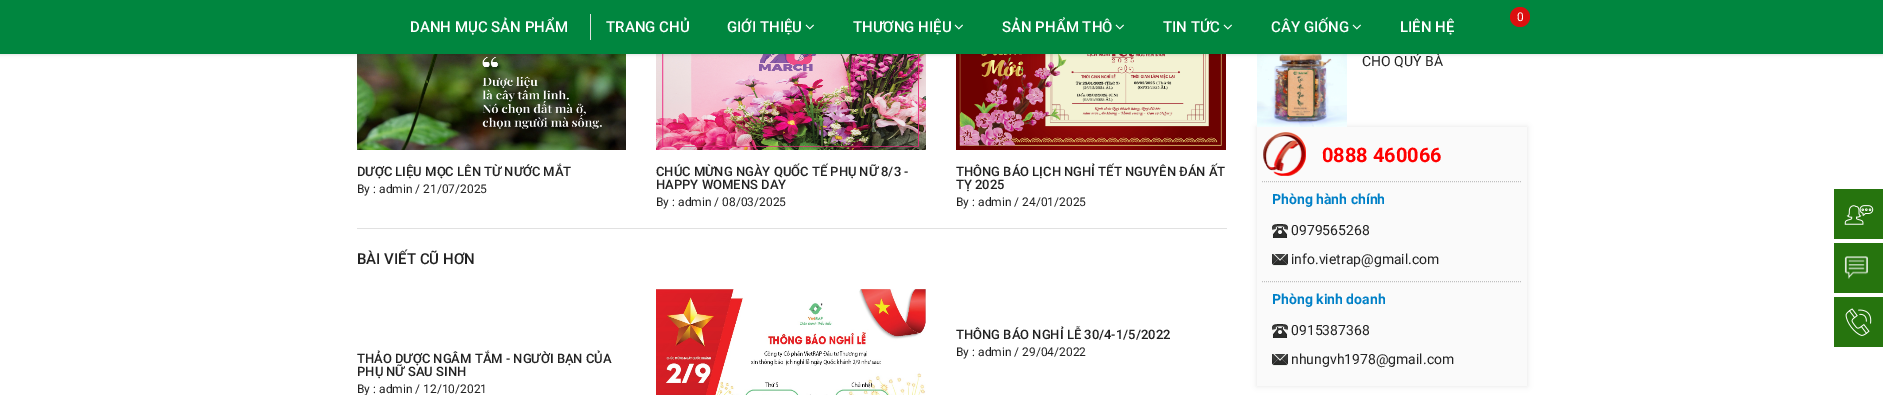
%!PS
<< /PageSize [1883 395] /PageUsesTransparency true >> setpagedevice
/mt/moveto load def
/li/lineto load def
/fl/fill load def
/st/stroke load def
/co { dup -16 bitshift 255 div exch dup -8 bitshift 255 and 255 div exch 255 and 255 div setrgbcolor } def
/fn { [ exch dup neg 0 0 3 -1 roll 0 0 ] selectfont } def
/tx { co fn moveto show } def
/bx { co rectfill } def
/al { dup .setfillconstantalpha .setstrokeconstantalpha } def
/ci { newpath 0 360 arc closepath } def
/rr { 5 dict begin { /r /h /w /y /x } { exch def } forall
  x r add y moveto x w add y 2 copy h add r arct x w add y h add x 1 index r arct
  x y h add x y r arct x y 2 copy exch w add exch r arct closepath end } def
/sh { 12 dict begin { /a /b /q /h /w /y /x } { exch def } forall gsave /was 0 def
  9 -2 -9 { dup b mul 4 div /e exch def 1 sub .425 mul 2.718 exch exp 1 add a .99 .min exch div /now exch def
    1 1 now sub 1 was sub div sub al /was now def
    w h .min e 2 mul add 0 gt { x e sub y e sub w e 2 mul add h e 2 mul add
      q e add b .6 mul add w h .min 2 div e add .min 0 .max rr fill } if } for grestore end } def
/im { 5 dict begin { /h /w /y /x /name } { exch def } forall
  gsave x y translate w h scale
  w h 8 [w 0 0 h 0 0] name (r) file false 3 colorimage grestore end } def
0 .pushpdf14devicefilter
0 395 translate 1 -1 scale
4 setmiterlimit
0 0 1883 395 16#FFFFFF bx
(media/2.raw) 357 54 269 96 im
(media/3.raw) 656 54 270 96 im
(media/4.raw) 956 54 270 96 im
16#000000 co
1257 127 270 259 0 3 .1 sh
(media/6.raw) 1257 54 90 73 im
0 1 1883 54 0 1.5 .11 sh
357 228 870 1 16#E1E1E1 bx
(media/5.raw) 656 289 270 106 im
1257 127 270 259 16#FAFAFA bx
(media/7.raw) 1263 132 43 44 im
16#C0C0C0 co
[1 1] 0 setdash
1262 181.5 mt 1522 181.5 li st
1262 281.5 mt 1522 281.5 li st
(media/8.raw) 1272 224 16 14 im
(media/9.raw) 1272 254 16 12 im
(media/8.raw) 1272 324 16 14 im
(media/9.raw) 1272 354 16 12 im
1834 189 49 50 16#26740E bx
(media/10.raw) 1844 205 30 20 im
1834 243 49 50 16#26740E bx
(media/11.raw) 1844 256 24 23 im
1834 297 49 50 16#26740E bx
(media/12.raw) 1845 308 27 28 im
(DƯỢC LIỆU MỌC LÊN TỪ NƯỚC MẮT) 357 176 /Roboto-Medium 13 16#222222 tx
(By : admin / 21/07/2025) 357 193 /Roboto-Regular 12 16#222222 tx
(CHÚC MỪNG NGÀY QUỐC TẾ PHỤ NỮ 8/3 -) 656 176 /Roboto-Medium 13 16#222222 tx
(HAPPY WOMENS DAY) 656 189 /Roboto-Medium 13 16#222222 tx
(By : admin / 08/03/2025) 656 206 /Roboto-Regular 12 16#222222 tx
(THÔNG BÁO LỊCH NGHỈ TẾT NGUYÊN ĐÁN ẤT) 956 176 /Roboto-Medium 13 16#222222 tx
(TỴ 2025) 956 189 /Roboto-Medium 13 16#222222 tx
(By : admin / 24/01/2025) 956 206 /Roboto-Regular 12 16#222222 tx
(BÀI VIẾT CŨ HƠN) 357 264 /Roboto-Medium 15 16#222222 tx
(THÔNG BÁO NGHỈ LỄ 30/4-1/5/2022) 956 339 /Roboto-Medium 13 16#222222 tx
(By : admin / 29/04/2022) 956 356 /Roboto-Regular 12 16#222222 tx
(THẢO DƯỢC NGÂM TẮM - NGƯỜI BẠN CỦA) 357 363 /Roboto-Medium 13 16#222222 tx
(PHỤ NỮ SAU SINH) 357 376 /Roboto-Medium 13 16#222222 tx
(By : admin / 12/10/2021) 357 393 /Roboto-Regular 12 16#222222 tx
(CHO QUÝ BÀ) 1362 66 /Roboto-Regular 14 16#222222 tx
0 0 1883 54 16#00863F bx
16#DC0F0F co
1520 17 10 ci fl
(0) 1517 21 /Roboto-Regular 12 16#FFFFFF tx
(LIÊN HỆ) 1400 32 /Roboto-Medium 15 16#FFFFFF tx
(media/1.raw) 1352 24 9 6 im
(CÂY GIỐNG) 1271 32 /Roboto-Medium 15 16#FFFFFF tx
(media/1.raw) 1223 24 9 6 im
(TIN TỨC) 1163 32 /Roboto-Medium 15 16#FFFFFF tx
(media/1.raw) 1115 24 9 6 im
(SẢN PHẨM THÔ) 1002 32 /Roboto-Medium 15 16#FFFFFF tx
(media/1.raw) 954 24 9 6 im
(THƯƠNG HIỆU) 853 32 /Roboto-Medium 15 16#FFFFFF tx
(media/1.raw) 805 24 9 6 im
(GIỚI THIỆU) 727 32 /Roboto-Medium 15 16#FFFFFF tx
(TRANG CHỦ) 606 32 /Roboto-Medium 15 16#FFFFFF tx
(DANH MỤC SẢN PHẨM) 410 32 /Roboto-Medium 15 16#FFFFFF tx
590 14 1 26 16#E1E1E1 bx
(0888 460066) 1322 162 /Roboto-Bold 20 16#FF0000 tx
(Phòng hành chính) 1272 204 /Roboto-Bold 14 16#0080C7 tx
(0979565268) 1291 235 /Roboto-Regular 14 16#222222 tx
(info.vietrap@gmail.com) 1291 264 /Roboto-Regular 14 16#222222 tx
(Phòng kinh doanh) 1272 304 /Roboto-Bold 14 16#0080C7 tx
(0915387368) 1291 335 /Roboto-Regular 14 16#222222 tx
(nhungvh1978@gmail.com) 1291 364 /Roboto-Regular 14 16#222222 tx
.poppdf14devicefilter showpage
